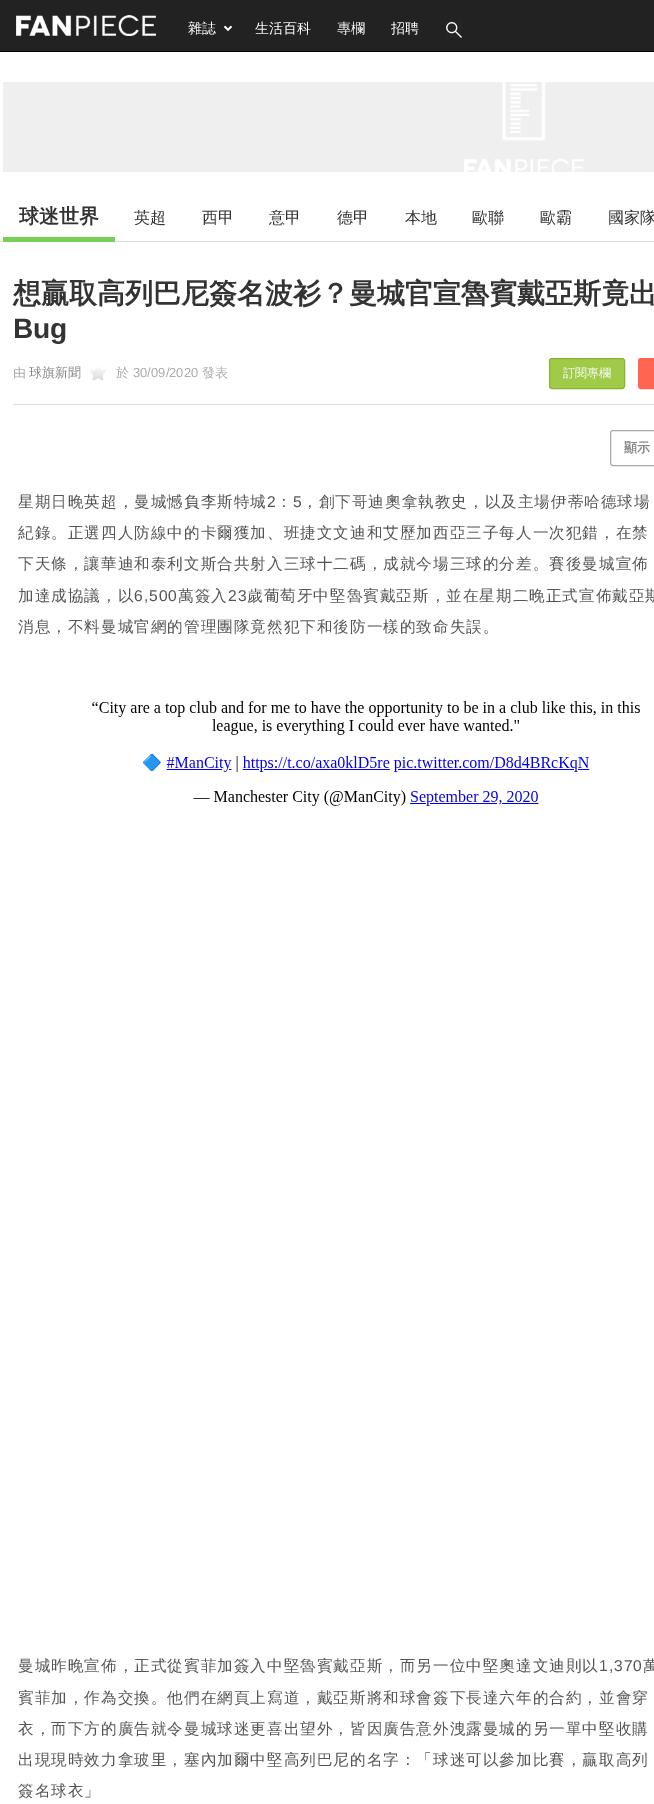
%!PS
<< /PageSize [654 1804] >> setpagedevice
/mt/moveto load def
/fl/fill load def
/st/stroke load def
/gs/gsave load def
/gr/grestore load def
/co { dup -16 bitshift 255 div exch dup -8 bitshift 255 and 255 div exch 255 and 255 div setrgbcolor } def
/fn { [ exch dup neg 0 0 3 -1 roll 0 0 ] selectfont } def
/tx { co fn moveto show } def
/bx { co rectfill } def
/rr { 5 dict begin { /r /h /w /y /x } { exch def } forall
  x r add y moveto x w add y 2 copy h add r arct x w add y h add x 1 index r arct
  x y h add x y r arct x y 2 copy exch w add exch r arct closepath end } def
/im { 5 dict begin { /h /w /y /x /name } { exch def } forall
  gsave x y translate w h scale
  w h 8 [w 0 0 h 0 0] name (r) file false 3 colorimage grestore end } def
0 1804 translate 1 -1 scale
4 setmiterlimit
0 0 654 1804 16#FFFFFF bx
0 0 654 51 16#222222 bx
0 51 654 1 16#000000 bx
(media/1.raw) 16 15 140 21 im
(media/2.raw) 223 25 10 7 im
(media/3.raw) 446 21 16 17 im
3 82 651 90 16#EFEFEF bx
(media/4.raw) 464 82 120 90 im
0 241 654 1 16#DDDDDD bx
3 237 112 5 16#77CF54 bx
13 404 641 1 16#DDDDDD bx
(media/5.raw) 90 367 16 14 im
16#9FCB48 co
549.5 358.5 75 30 2.5 rr gs fl gr
16#88B334 co
st
16#FF6550 co
638.5 358.5 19 30 2.5 rr gs fl gr
st
16#AAAAAA co
610.5 430.5 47 35 2.5 rr st
(media/6.raw) 92 701 548 105 im
(雜誌) 188 33 /WenQuanYiZenHei-Medium 14 16#FFFFFF tx
(生活百科) 255 33 /WenQuanYiZenHei-Medium 14 16#FFFFFF tx
(專欄) 337 33 /WenQuanYiZenHei-Medium 14 16#FFFFFF tx
(招聘) 391 33 /WenQuanYiZenHei-Medium 14 16#FFFFFF tx
(球迷世界) 19 223 /WenQuanYiZenHei-Bold 20 16#333333 tx
(英超) 134 223 /WenQuanYiZenHei-Medium 16 16#333333 tx
(西甲) 202 223 /WenQuanYiZenHei-Medium 16 16#333333 tx
(意甲) 269 223 /WenQuanYiZenHei-Medium 16 16#333333 tx
(德甲) 337 223 /WenQuanYiZenHei-Medium 16 16#333333 tx
(本地) 405 223 /WenQuanYiZenHei-Medium 16 16#333333 tx
(歐聯) 472 223 /WenQuanYiZenHei-Medium 16 16#333333 tx
(歐霸) 540 223 /WenQuanYiZenHei-Medium 16 16#333333 tx
(國家隊) 608 223 /WenQuanYiZenHei-Medium 16 16#333333 tx
(想贏取高列巴尼簽名波衫？曼城官宣魯賓戴亞斯竟出) 13 303 /WenQuanYiZenHei-Bold 28 16#333333 tx
(Bug) 13 338 /LiberationSans-Bold 28 16#333333 tx
(由) 13 377 /WenQuanYiZenHei-Medium 13 16#AAAAAA tx
(球旗新聞) 29 377 /WenQuanYiZenHei-Medium 13 16#888888 tx
(於) 116 377 /WenQuanYiZenHei-Medium 13 16#AAAAAA tx
(30/09/2020) 133 377 /LiberationSans-Regular 13 16#AAAAAA tx
(發表) 202 377 /WenQuanYiZenHei-Medium 13 16#AAAAAA tx
(訂閱專欄) 563 377 /WenQuanYiZenHei-Medium 12 16#FFFFFF tx
(顯示) 624 452 /WenQuanYiZenHei-Bold 13 16#888888 tx
/WenQuanYiZenHei-Medium 15.6 fn
16#555555 co
18 507 mt 1 0 (星期日晚英超，曼城憾負李斯特城) ashow
/LiberationSans-Regular 15.6 fn
267 507 mt 1 0 (2) ashow
/WenQuanYiZenHei-Medium 15.6 fn
276 507 mt 1 0 (：) ashow
/LiberationSans-Regular 15.6 fn
293 507 mt 1 0 (5) ashow
/WenQuanYiZenHei-Medium 15.6 fn
302 507 mt 1 0 (，創下哥迪奧拿執教史，以及主場伊蒂哈德球場) ashow
18 538 mt 1 0 (紀錄。正選四人防線中的卡爾獲加、班捷文文迪和艾歷加西亞三子每人一次犯錯，在禁) ashow
18 569 mt 1 0 (下天條，讓華迪和泰利文斯合共射入三球十二碼，成就今場三球的分差。賽後曼城宣佈) ashow
18 601 mt 1 0 (加達成協議，以) ashow
/LiberationSans-Regular 15.6 fn
134 601 mt 1 0 (6,500) ashow
/WenQuanYiZenHei-Medium 15.6 fn
178 601 mt 1 0 (萬簽入) ashow
/LiberationSans-Regular 15.6 fn
228 601 mt 1 0 (23) ashow
/WenQuanYiZenHei-Medium 15.6 fn
247 601 mt 1 0 (歲葡萄牙中堅魯賓戴亞斯，並在星期二晚正式宣佈戴亞斯) ashow
18 632 mt 1 0 (消息，不料曼城官網的管理團隊竟然犯下和後防一樣的致命失誤。) ashow
18 1671 mt 1 0 (曼城昨晚宣佈，正式從賓菲加簽入中堅魯賓戴亞斯，而另一位中堅奧達文迪則以) ashow
/LiberationSans-Regular 15.6 fn
599 1671 mt 1 0 (1,370) ashow
/WenQuanYiZenHei-Medium 15.6 fn
643 1671 mt 1 0 (萬) ashow
18 1703 mt 1 0 (賓菲加，作為交換。他們在網頁上寫道，戴亞斯將和球會簽下長達六年的合約，並會穿) ashow
18 1734 mt 1 0 (衣，而下方的廣告就令曼城球迷更喜出望外，皆因廣告意外洩露曼城的另一單中堅收購) ashow
18 1765 mt 1 0 (出現現時效力拿玻里，塞內加爾中堅高列巴尼的名字：「球迷可以參加比賽，贏取高列) ashow
18 1796 mt 1 0 (簽名球衣」) ashow
showpage
